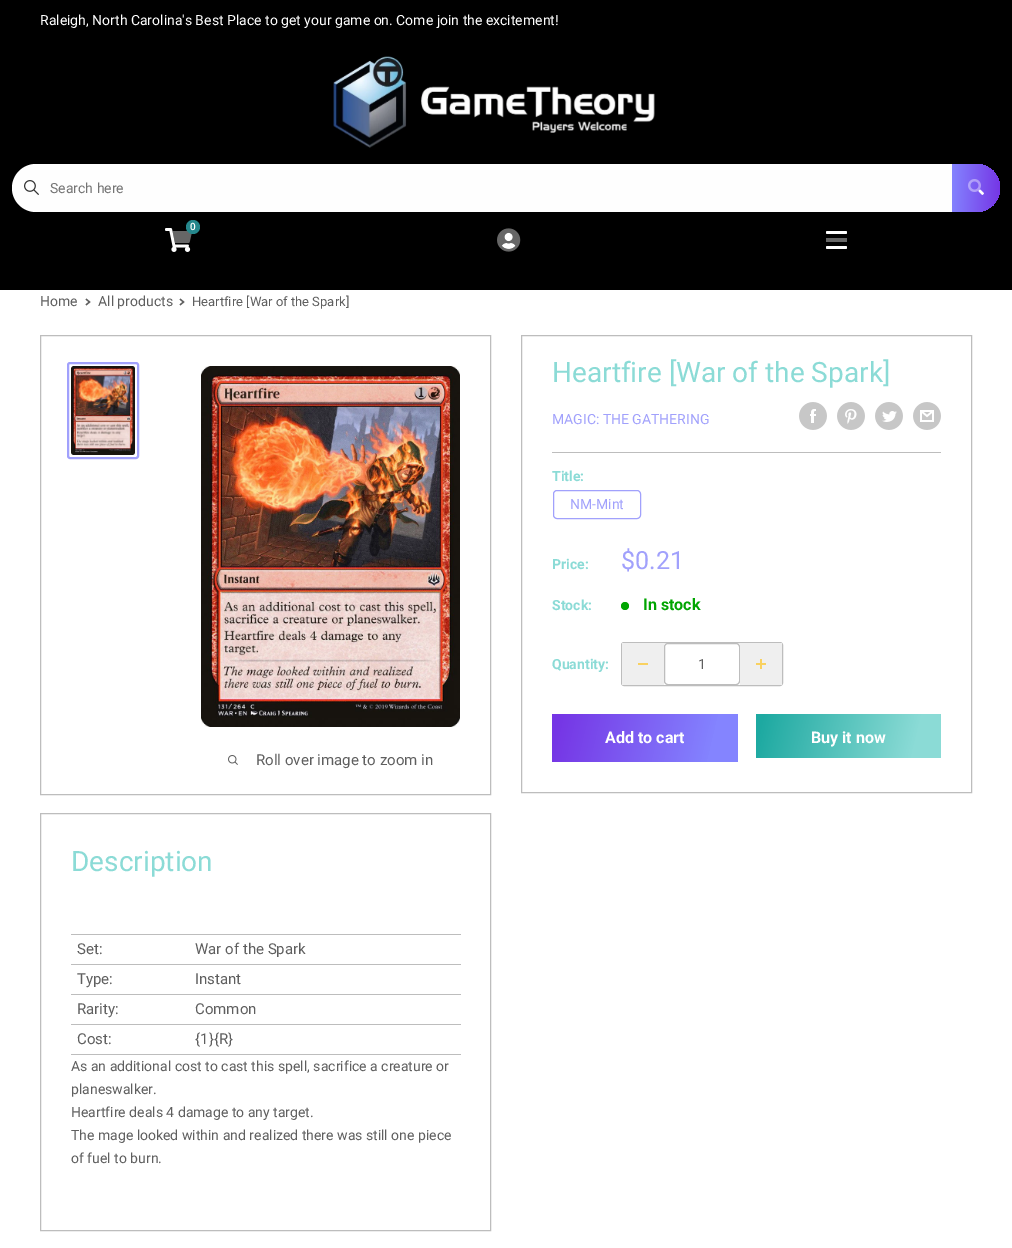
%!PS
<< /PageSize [1012 1248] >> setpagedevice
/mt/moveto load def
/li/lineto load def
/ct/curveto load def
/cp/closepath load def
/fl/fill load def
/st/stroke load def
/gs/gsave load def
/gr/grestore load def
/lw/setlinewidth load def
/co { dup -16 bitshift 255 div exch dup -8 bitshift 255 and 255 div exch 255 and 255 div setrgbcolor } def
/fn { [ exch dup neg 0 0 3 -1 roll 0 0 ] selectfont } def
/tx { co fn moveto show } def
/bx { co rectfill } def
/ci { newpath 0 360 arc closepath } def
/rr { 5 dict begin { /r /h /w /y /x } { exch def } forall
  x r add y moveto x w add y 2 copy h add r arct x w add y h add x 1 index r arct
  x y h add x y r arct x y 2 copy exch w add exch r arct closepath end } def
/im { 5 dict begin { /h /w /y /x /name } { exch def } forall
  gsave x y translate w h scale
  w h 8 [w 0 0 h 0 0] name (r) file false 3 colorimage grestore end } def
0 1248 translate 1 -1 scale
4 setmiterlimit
0 0 1012 1248 16#000000 bx
(media/1.raw) 333 56 322 92 im
16#FEFEFE co
12 164 988 48 24 rr fl
(media/2.raw) 24 180 15 15 im
gs 952 164 mt 976 164 li 989.5 164 1000 174.5 1000 188 ct 1000 201.5 989.5 212 976 212 ct 952 212 li cp clip newpath
<< /ShadingType 2 /ColorSpace /DeviceRGB /Coords [1001 189 951 187] /Extend [true true] /Function << /FunctionType 2 /Domain [0 1] /C0 [.459 .208 .898] /C1 [.518 .518 1] /N 1 >> >> shfill gr
(media/4.raw) 978 189 6 6 im
(media/3.raw) 968 179 13 13 im
(media/5.raw) 165 228 26 24 im
(media/6.raw) 172 231 20 12 im
16#25878C co
193 227 7 ci fl
(media/8.raw) 501 232 15 17 im
(media/7.raw) 497 228 24 24 im
(media/9.raw) 826 231 21 18 im
826 238 21 4 16#666666 bx
0 290 1012 958 16#FFFFFF bx
16#5F5F5F co
1.3 lw
2 setlinecap
86.5 299.5 mt 89.5 302 li 86.5 304.5 li st
180.5 299.5 mt 183.5 302 li 180.5 304.5 li st
16#BDBDBD co
1 lw
0 setlinecap
521.5 335.5 450 457 rectstroke
(media/10.raw) 799 402 28 28 im
(media/11.raw) 837 402 28 28 im
(media/12.raw) 875 402 28 28 im
(media/13.raw) 913 402 28 28 im
552 452 389 1 16#BDBDBD bx
16#A1A1FC co
553.5 490.5 87 28 3.5 rr st
16#00A500 co
625 606 4 ci fl
16#BDBDBD co
621.5 642.5 161 43 2.5 rr st
622 643 42 42 16#EFEFEF bx
638 663 10 2 16#F9D160 bx
16#BDBDBD co
664.5 643.5 75 41 3.5 rr st
740 643 42 42 16#EFEFEF bx
(media/14.raw) 756 659 10 10 im
gs 552 714 186 48 2 rr clip newpath
<< /ShadingType 2 /ColorSpace /DeviceRGB /Coords [552 716 738 760] /Extend [true true] /Function << /FunctionType 3 /Domain [0 1] /Functions [<< /FunctionType 2 /Domain [0 1] /C0 [.459 .208 .898] /C1 [.459 .208 .898] /N 1 >> << /FunctionType 2 /Domain [0 1] /C0 [.459 .208 .898] /C1 [.518 .518 1] /N 1 >> << /FunctionType 2 /Domain [0 1] /C0 [.518 .518 1] /C1 [.518 .518 1] /N 1 >>] /Bounds [.03 .85] /Encode [0 1 0 1 0 1] >> >> shfill gr
gs 756 714 185 44 2 rr clip newpath
<< /ShadingType 2 /ColorSpace /DeviceRGB /Coords [756 714 941 758] /Extend [true true] /Function << /FunctionType 3 /Domain [0 1] /Functions [<< /FunctionType 2 /Domain [0 1] /C0 [.114 .663 .631] /C1 [.114 .663 .631] /N 1 >> << /FunctionType 2 /Domain [0 1] /C0 [.114 .663 .631] /C1 [.545 .859 .839] /N 1 >> << /FunctionType 2 /Domain [0 1] /C0 [.545 .859 .839] /C1 [.545 .859 .839] /N 1 >>] /Bounds [.03 .85] /Encode [0 1 0 1 0 1] >> >> shfill gr
16#BDBDBD co
40.5 335.5 450 459 rectstroke
16#A1A1FC co
2 lw
68 363 70 95 2 rr st
(media/15.raw) 71 366 64 89 im
(media/16.raw) 201 366 259 361 im
(media/17.raw) 228 755 10 10 im
16#BDBDBD co
1 lw
40.5 813.5 450 417 rectstroke
71 934 390 1 16#BDBDBD bx
71 964 390 1 16#BDBDBD bx
71 994 390 1 16#BDBDBD bx
71 1024 390 1 16#BDBDBD bx
71 1054 390 1 16#BDBDBD bx
(Raleigh, North Carolina's Best Place to get your game on. Come join the excitement!) 40 25 /Roboto-Regular 14 16#FFFFFF tx
(Search here) 50 193 /Roboto-Regular 14 16#757575 tx
(0) 190 230 /Roboto-Medium 10 16#FFFFFF tx
(Home) 40 306 /Roboto-Regular 14 16#5F5F5F tx
(All products) 98 306 /Roboto-Regular 14 16#5F5F5F tx
(Heartfire [War of the Spark]) 192 306 /Roboto-Regular 13 16#5F5F5F tx
(Heartfire [War of the Spark]) 552 382 /Roboto-Regular 28 16#8BDBD6 tx
(MAGIC: THE GATHERING) 552 424 /Roboto-Regular 14 16#A1A1FC tx
(Title:) 552 481 /Roboto-Bold 14 16#8BDBD6 tx
(NM-Mint) 570 509 /Roboto-Regular 14 16#A1A1FC tx
(Price:) 552 569 /Roboto-Bold 14 16#8BDBD6 tx
($0.21) 621 569 /Roboto-Regular 25 16#A1A1FC tx
(Stock:) 552 610 /Roboto-Bold 14 16#8BDBD6 tx
(In stock) 643 610 /Roboto-Bold 16 16#00A500 tx
(Quantity:) 552 669 /Roboto-Bold 14 16#8BDBD6 tx
(1) 698 669 /Roboto-Regular 14 16#5F5F5F tx
(Add to cart) 605 743 /Roboto-Bold 16 16#FFFFFF tx
(Buy it now) 811 743 /Roboto-Bold 16 16#FFFFFF tx
(Roll over image to zoom in) 256 765 /Roboto-Regular 15 16#5F5F5F tx
(Description) 71 871 /Roboto-Regular 28 16#8BDBD6 tx
(Set:) 77 954 /Roboto-Regular 15 16#5F5F5F tx
(War of the Spark) 195 954 /Roboto-Regular 15 16#5F5F5F tx
(Type:) 77 984 /Roboto-Regular 15 16#5F5F5F tx
(Instant) 195 984 /Roboto-Regular 15 16#5F5F5F tx
(Rarity:) 77 1014 /Roboto-Regular 15 16#5F5F5F tx
(Common) 195 1014 /Roboto-Regular 15 16#5F5F5F tx
(Cost:) 77 1044 /Roboto-Regular 15 16#5F5F5F tx
({1}{R}) 195 1044 /Roboto-Regular 15 16#5F5F5F tx
(As an additional cost to cast this spell, sacrifice a creature or) 71 1071 /Roboto-Regular 14 16#5F5F5F tx
(planeswalker.) 71 1094 /Roboto-Regular 14 16#5F5F5F tx
(Heartfire deals 4 damage to any target.) 71 1117 /Roboto-Regular 14 16#5F5F5F tx
(The mage looked within and realized there was still one piece) 71 1140 /Roboto-Regular 14 16#5F5F5F tx
(of fuel to burn.) 71 1163 /Roboto-Regular 14 16#5F5F5F tx
showpage
